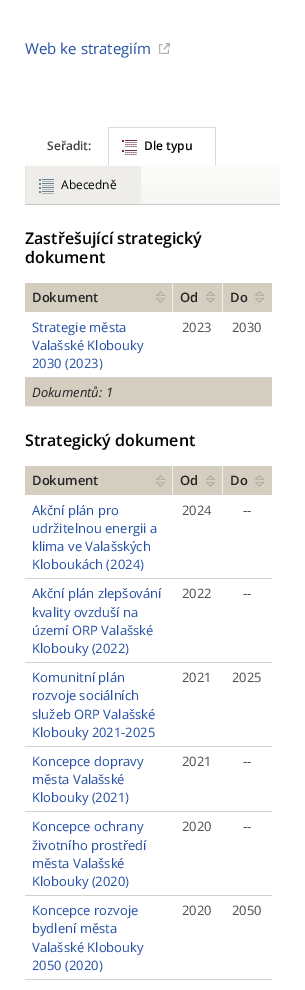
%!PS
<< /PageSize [305 990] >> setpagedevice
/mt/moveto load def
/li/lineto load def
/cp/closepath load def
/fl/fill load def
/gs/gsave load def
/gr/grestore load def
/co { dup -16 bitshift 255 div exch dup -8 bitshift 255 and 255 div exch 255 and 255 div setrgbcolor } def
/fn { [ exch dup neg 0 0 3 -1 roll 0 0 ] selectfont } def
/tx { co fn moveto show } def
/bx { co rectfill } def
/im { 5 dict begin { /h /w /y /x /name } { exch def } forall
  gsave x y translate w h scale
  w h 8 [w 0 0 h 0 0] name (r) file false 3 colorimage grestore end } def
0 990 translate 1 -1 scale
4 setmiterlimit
0 0 305 990 16#FFFFFF bx
(media/1.raw) 159 43 11 11 im
gs 25 162 mt 280 162 li 280 204 li 25 204 li cp clip newpath
<< /ShadingType 2 /ColorSpace /DeviceRGB /Coords [153 126 153 204] /Extend [true true] /Function << /FunctionType 3 /Domain [0 1] /Functions [<< /FunctionType 2 /Domain [0 1] /C0 [1 1 1] /C1 [1 1 1] /N 1 >> << /FunctionType 2 /Domain [0 1] /C0 [1 1 1] /C1 [.969 .965 .957] /N 1 >>] /Bounds [.3] /Encode [0 1 0 1] >> >> shfill gr
141 204 139 1 16#C9C8C5 bx
108 162 108 4 16#FFFFFF bx
108 127 108 1 16#DCDBDB bx
216 127 mt 216 166 li 215 165 li 215 128 li cp fl
108 166 mt 108 127 li 109 128 li 109 165 li cp fl
(media/2.raw) 122 140 15 15 im
25 166 116 39 16#EFEDE9 bx
16#C9C8C5 co
141 205 mt 25 205 li 26 204 li 140 204 li cp fl
16#E7E4DD co
25 205 mt 25 166 li 26 167 li 26 204 li cp fl
(media/3.raw) 39 179 15 15 im
25 283 147 29 16#D4CEC1 bx
(media/4.raw) 156 291 9 12 im
173 283 49 29 16#D4CEC1 bx
172 283 1 29 16#F2F0EC bx
(media/4.raw) 206 291 9 12 im
223 283 48 29 16#D4CEC1 bx
222 283 1 29 16#F2F0EC bx
271 283 1 30 16#D4CEC1 bx
271 312 1 1 16#F2F0EC bx
(media/4.raw) 255 291 9 12 im
271 377 1 30 16#D4CEC1 bx
25 377 247 1 16#D3D1CC bx
25 378 246 28 16#D4CEC1 bx
25 406 247 1 16#F2F0EC bx
25 466 147 29 16#D4CEC1 bx
(media/4.raw) 156 475 9 12 im
173 466 49 29 16#D4CEC1 bx
172 466 1 29 16#F2F0EC bx
(media/4.raw) 206 475 9 12 im
223 466 48 29 16#D4CEC1 bx
222 466 1 29 16#F2F0EC bx
271 466 1 30 16#D4CEC1 bx
271 495 1 1 16#F2F0EC bx
(media/4.raw) 255 475 9 12 im
25 578 247 1 16#D3D1CC bx
25 662 247 1 16#D3D1CC bx
25 746 247 1 16#D3D1CC bx
25 811 247 1 16#D3D1CC bx
25 895 247 1 16#D3D1CC bx
25 979 247 1 16#D3D1CC bx
(Web ke strategiím) 25 54 /OpenSans-Regular 15 16#244FA5 tx
(Seřadit:) 47 150 /OpenSans-SemiBold 12 16#424242 tx
(Dle typu) 144 150 /OpenSans-SemiBold 12 16#000000 tx
(Abecedně) 61 189 /OpenSans-Regular 12 16#000000 tx
(Zastřešující strategický) 25 244 /OpenSans-SemiBold 16 16#000000 tx
(dokument) 25 263 /OpenSans-SemiBold 16 16#000000 tx
(Dokument) 32 302 /OpenSans-SemiBold 13 16#252525 tx
(Od) 180 302 /OpenSans-SemiBold 13 16#252525 tx
(Do) 230 302 /OpenSans-SemiBold 13 16#252525 tx
(Strategie města) 32 332 /OpenSans-Regular 13 16#244FA5 tx
(Valašské Klobouky) 32 350 /OpenSans-Regular 13 16#244FA5 tx
(2030 \(2023\)) 32 368 /OpenSans-Regular 13 16#244FA5 tx
(2023) 182 332 /OpenSans-Regular 13 16#4C4C4C tx
(2030) 232 332 /OpenSans-Regular 13 16#4C4C4C tx
(Dokumentů: 1) 32 397 /OpenSans-Italic 13 16#252525 tx
(Strategický dokument) 25 446 /OpenSans-SemiBold 16 16#000000 tx
(Dokument) 32 485 /OpenSans-SemiBold 13 16#252525 tx
(Od) 180 485 /OpenSans-SemiBold 13 16#252525 tx
(Do) 230 485 /OpenSans-SemiBold 13 16#252525 tx
(Akční plán pro) 32 515 /OpenSans-Regular 13 16#244FA5 tx
(udržitelnou energii a) 32 533 /OpenSans-Regular 13 16#244FA5 tx
(klima ve Valašských) 32 551 /OpenSans-Regular 13 16#244FA5 tx
(Kloboukách \(2024\)) 32 569 /OpenSans-Regular 13 16#244FA5 tx
(2024) 182 515 /OpenSans-Regular 13 16#4C4C4C tx
(--) 243 515 /OpenSans-Regular 13 16#4C4C4C tx
(Akční plán zlepšování) 32 598 /OpenSans-Regular 13 16#244FA5 tx
(kvality ovzduší na) 32 617 /OpenSans-Regular 13 16#244FA5 tx
(území ORP Valašské) 32 635 /OpenSans-Regular 13 16#244FA5 tx
(Klobouky \(2022\)) 32 653 /OpenSans-Regular 13 16#244FA5 tx
(2022) 182 598 /OpenSans-Regular 13 16#4C4C4C tx
(--) 243 598 /OpenSans-Regular 13 16#4C4C4C tx
(Komunitní plán) 32 682 /OpenSans-Regular 13 16#244FA5 tx
(rozvoje sociálních) 32 700 /OpenSans-Regular 13 16#244FA5 tx
(služeb ORP Valašské) 32 719 /OpenSans-Regular 13 16#244FA5 tx
(Klobouky 2021-2025) 32 737 /OpenSans-Regular 13 16#244FA5 tx
(2021) 182 682 /OpenSans-Regular 13 16#4C4C4C tx
(2025) 232 682 /OpenSans-Regular 13 16#4C4C4C tx
(Koncepce dopravy) 32 766 /OpenSans-Regular 13 16#244FA5 tx
(města Valašské) 32 784 /OpenSans-Regular 13 16#244FA5 tx
(Klobouky \(2021\)) 32 802 /OpenSans-Regular 13 16#244FA5 tx
(2021) 182 766 /OpenSans-Regular 13 16#4C4C4C tx
(--) 243 766 /OpenSans-Regular 13 16#4C4C4C tx
(Koncepce ochrany) 32 831 /OpenSans-Regular 13 16#244FA5 tx
(životního prostředí) 32 850 /OpenSans-Regular 13 16#244FA5 tx
(města Valašské) 32 868 /OpenSans-Regular 13 16#244FA5 tx
(Klobouky \(2020\)) 32 886 /OpenSans-Regular 13 16#244FA5 tx
(2020) 182 831 /OpenSans-Regular 13 16#4C4C4C tx
(--) 243 831 /OpenSans-Regular 13 16#4C4C4C tx
(Koncepce rozvoje) 32 915 /OpenSans-Regular 13 16#244FA5 tx
(bydlení města) 32 933 /OpenSans-Regular 13 16#244FA5 tx
(Valašské Klobouky) 32 952 /OpenSans-Regular 13 16#244FA5 tx
(2050 \(2020\)) 32 970 /OpenSans-Regular 13 16#244FA5 tx
(2020) 182 915 /OpenSans-Regular 13 16#4C4C4C tx
(2050) 232 915 /OpenSans-Regular 13 16#4C4C4C tx
showpage
